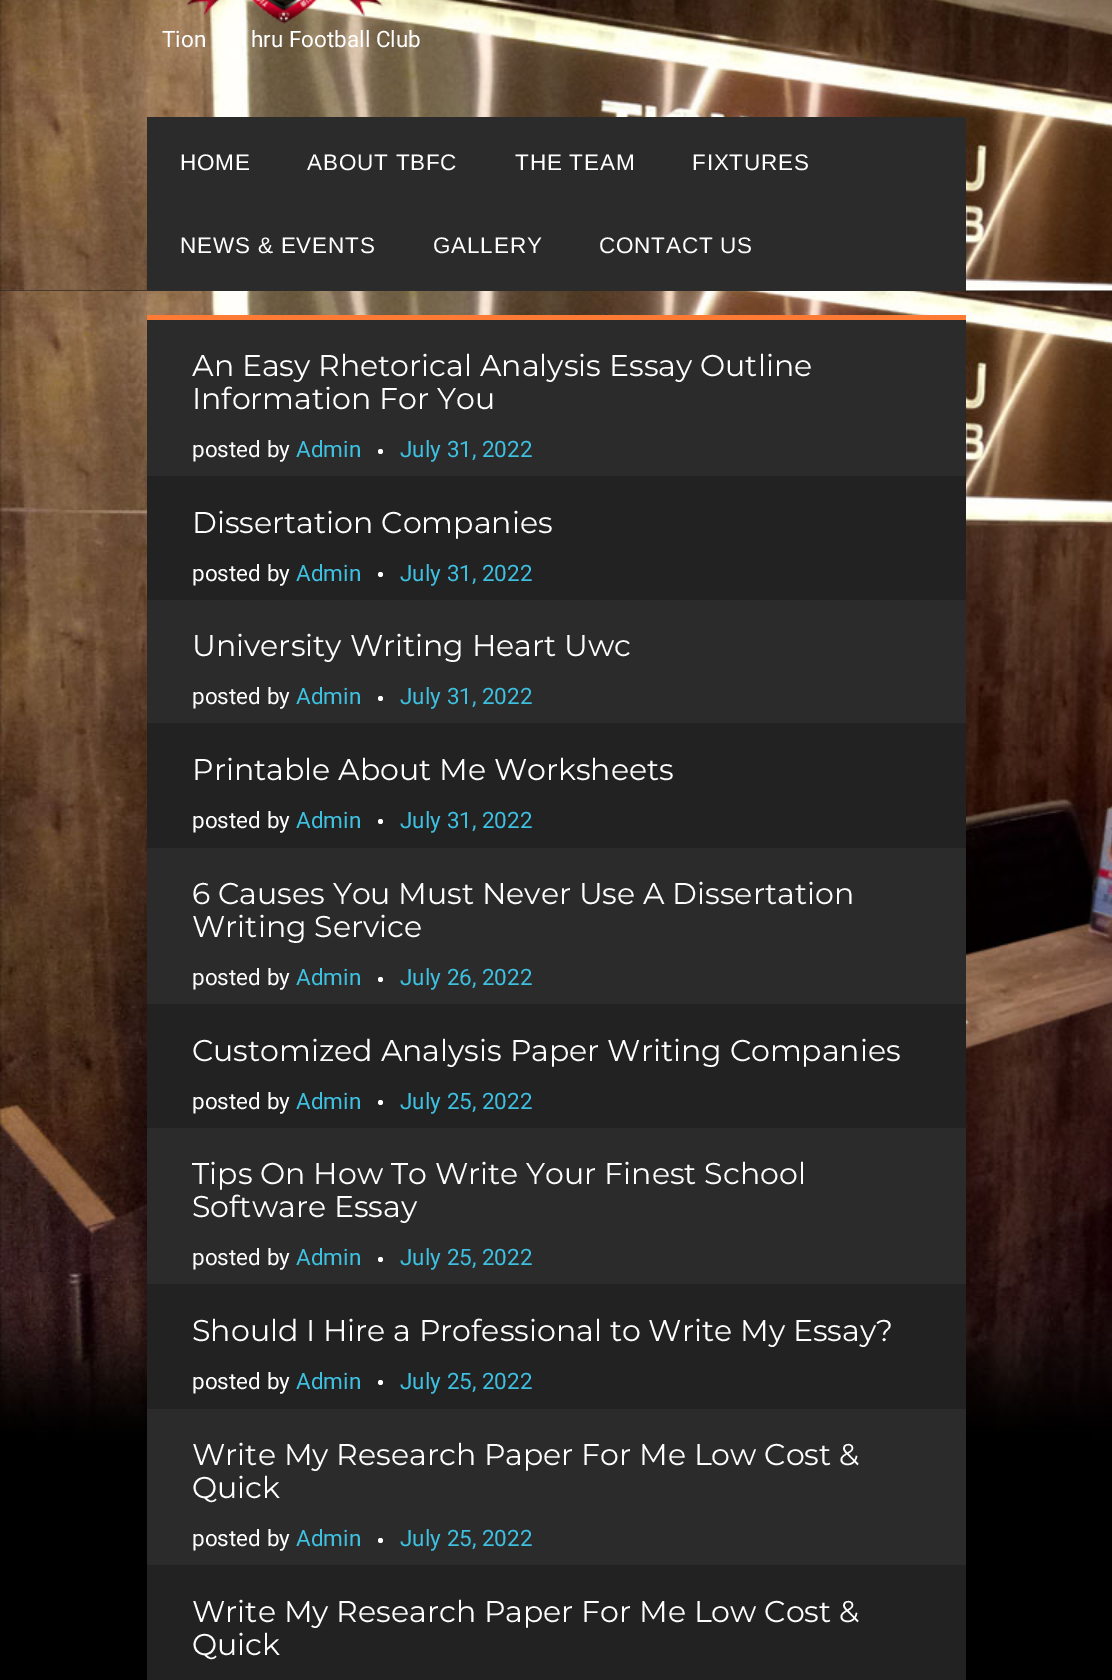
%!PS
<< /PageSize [1112 1680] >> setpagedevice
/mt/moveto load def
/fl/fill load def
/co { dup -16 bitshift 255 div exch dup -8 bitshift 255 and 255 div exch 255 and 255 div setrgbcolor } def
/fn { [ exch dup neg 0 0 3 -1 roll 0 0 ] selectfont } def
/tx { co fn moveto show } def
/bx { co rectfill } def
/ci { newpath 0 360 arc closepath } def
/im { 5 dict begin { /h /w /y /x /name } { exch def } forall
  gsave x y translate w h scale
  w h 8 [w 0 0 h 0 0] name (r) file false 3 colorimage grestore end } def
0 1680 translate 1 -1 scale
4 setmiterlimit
0 0 1112 1680 16#FFFFFF bx
(media/1.raw) 0 291 1112 1389 im
0 290 1112 1 16#141414 bx
(media/2.raw) 0 0 1112 291 im
(media/3.raw) 186 0 197 24 im
147 117 819 174 16#2B2B2B bx
147 315 819 5 16#FD7B35 bx
147 320 819 156 16#2B2B2B bx
16#FFFFFF co
380.5 451.5 2.5 ci fl
147 476 819 124 16#222222 bx
16#FFFFFF co
380.5 574.5 2.5 ci fl
147 600 819 123 16#2B2B2B bx
16#FFFFFF co
380.5 698.5 2.5 ci fl
147 723 819 125 16#222222 bx
16#FFFFFF co
380.5 821.5 2.5 ci fl
147 848 819 156 16#2B2B2B bx
16#FFFFFF co
380.5 979.5 2.5 ci fl
147 1004 819 124 16#222222 bx
16#FFFFFF co
380.5 1102.5 2.5 ci fl
147 1128 819 156 16#2B2B2B bx
16#FFFFFF co
380.5 1259.5 2.5 ci fl
147 1284 819 125 16#222222 bx
16#FFFFFF co
380.5 1382.5 2.5 ci fl
147 1409 819 156 16#2B2B2B bx
16#FFFFFF co
380.5 1540.5 2.5 ci fl
147 1565 819 115 16#222222 bx
(Tion) 162 47 /Roboto-Regular 22.5 16#FFFFFF tx
(hru Football Club) 251 47 /Roboto-Regular 22.5 16#FFFFFF tx
/LiberationSans-Regular 22.5 fn
180 170 mt .8 0 (HOME) ashow
307 170 mt .8 0 (ABOUT TBFC) ashow
515 170 mt .8 0 (THE TEAM) ashow
692 170 mt .8 0 (FIXTURES) ashow
180 253 mt .8 0 (NEWS & EVENTS) ashow
433 253 mt .8 0 (GALLERY) ashow
599 253 mt .8 0 (CONTACT US) ashow
(An Easy Rhetorical Analysis Essay Outline) 192 376 /Montserrat-Regular 30 16#FFFFFF tx
(Information For You) 192 409 /Montserrat-Regular 30 16#FFFFFF tx
(posted by) 192 457 /Roboto-Regular 22.5 16#FFFFFF tx
(Admin) 296 457 /Roboto-Regular 22.5 16#3EC0E1 tx
(July 31, 2022) 400 457 /Roboto-Regular 22.5 16#3EC0E1 tx
(Dissertation Companies) 192 533 /Montserrat-Regular 30 16#FFFFFF tx
(posted by) 192 581 /Roboto-Regular 22.5 16#FFFFFF tx
(Admin) 296 581 /Roboto-Regular 22.5 16#3EC0E1 tx
(July 31, 2022) 400 581 /Roboto-Regular 22.5 16#3EC0E1 tx
(University Writing Heart Uwc) 192 656 /Montserrat-Regular 30 16#FFFFFF tx
(posted by) 192 704 /Roboto-Regular 22.5 16#FFFFFF tx
(Admin) 296 704 /Roboto-Regular 22.5 16#3EC0E1 tx
(July 31, 2022) 400 704 /Roboto-Regular 22.5 16#3EC0E1 tx
(Printable About Me Worksheets) 192 780 /Montserrat-Regular 30 16#FFFFFF tx
(posted by) 192 828 /Roboto-Regular 22.5 16#FFFFFF tx
(Admin) 296 828 /Roboto-Regular 22.5 16#3EC0E1 tx
(July 31, 2022) 400 828 /Roboto-Regular 22.5 16#3EC0E1 tx
(6 Causes You Must Never Use A Dissertation) 192 904 /Montserrat-Regular 30 16#FFFFFF tx
(Writing Service) 192 937 /Montserrat-Regular 30 16#FFFFFF tx
(posted by) 192 985 /Roboto-Regular 22.5 16#FFFFFF tx
(Admin) 296 985 /Roboto-Regular 22.5 16#3EC0E1 tx
(July 26, 2022) 400 985 /Roboto-Regular 22.5 16#3EC0E1 tx
(Customized Analysis Paper Writing Companies) 192 1061 /Montserrat-Regular 30 16#FFFFFF tx
(posted by) 192 1109 /Roboto-Regular 22.5 16#FFFFFF tx
(Admin) 296 1109 /Roboto-Regular 22.5 16#3EC0E1 tx
(July 25, 2022) 400 1109 /Roboto-Regular 22.5 16#3EC0E1 tx
(Tips On How To Write Your Finest School) 192 1184 /Montserrat-Regular 30 16#FFFFFF tx
(Software Essay) 192 1217 /Montserrat-Regular 30 16#FFFFFF tx
(posted by) 192 1265 /Roboto-Regular 22.5 16#FFFFFF tx
(Admin) 296 1265 /Roboto-Regular 22.5 16#3EC0E1 tx
(July 25, 2022) 400 1265 /Roboto-Regular 22.5 16#3EC0E1 tx
(Should I Hire a Professional to Write My Essay?) 192 1341 /Montserrat-Regular 30 16#FFFFFF tx
(posted by) 192 1389 /Roboto-Regular 22.5 16#FFFFFF tx
(Admin) 296 1389 /Roboto-Regular 22.5 16#3EC0E1 tx
(July 25, 2022) 400 1389 /Roboto-Regular 22.5 16#3EC0E1 tx
(Write My Research Paper For Me Low Cost &) 192 1465 /Montserrat-Regular 30 16#FFFFFF tx
(Quick) 192 1498 /Montserrat-Regular 30 16#FFFFFF tx
(posted by) 192 1546 /Roboto-Regular 22.5 16#FFFFFF tx
(Admin) 296 1546 /Roboto-Regular 22.5 16#3EC0E1 tx
(July 25, 2022) 400 1546 /Roboto-Regular 22.5 16#3EC0E1 tx
(Write My Research Paper For Me Low Cost &) 192 1622 /Montserrat-Regular 30 16#FFFFFF tx
(Quick) 192 1655 /Montserrat-Regular 30 16#FFFFFF tx
showpage
